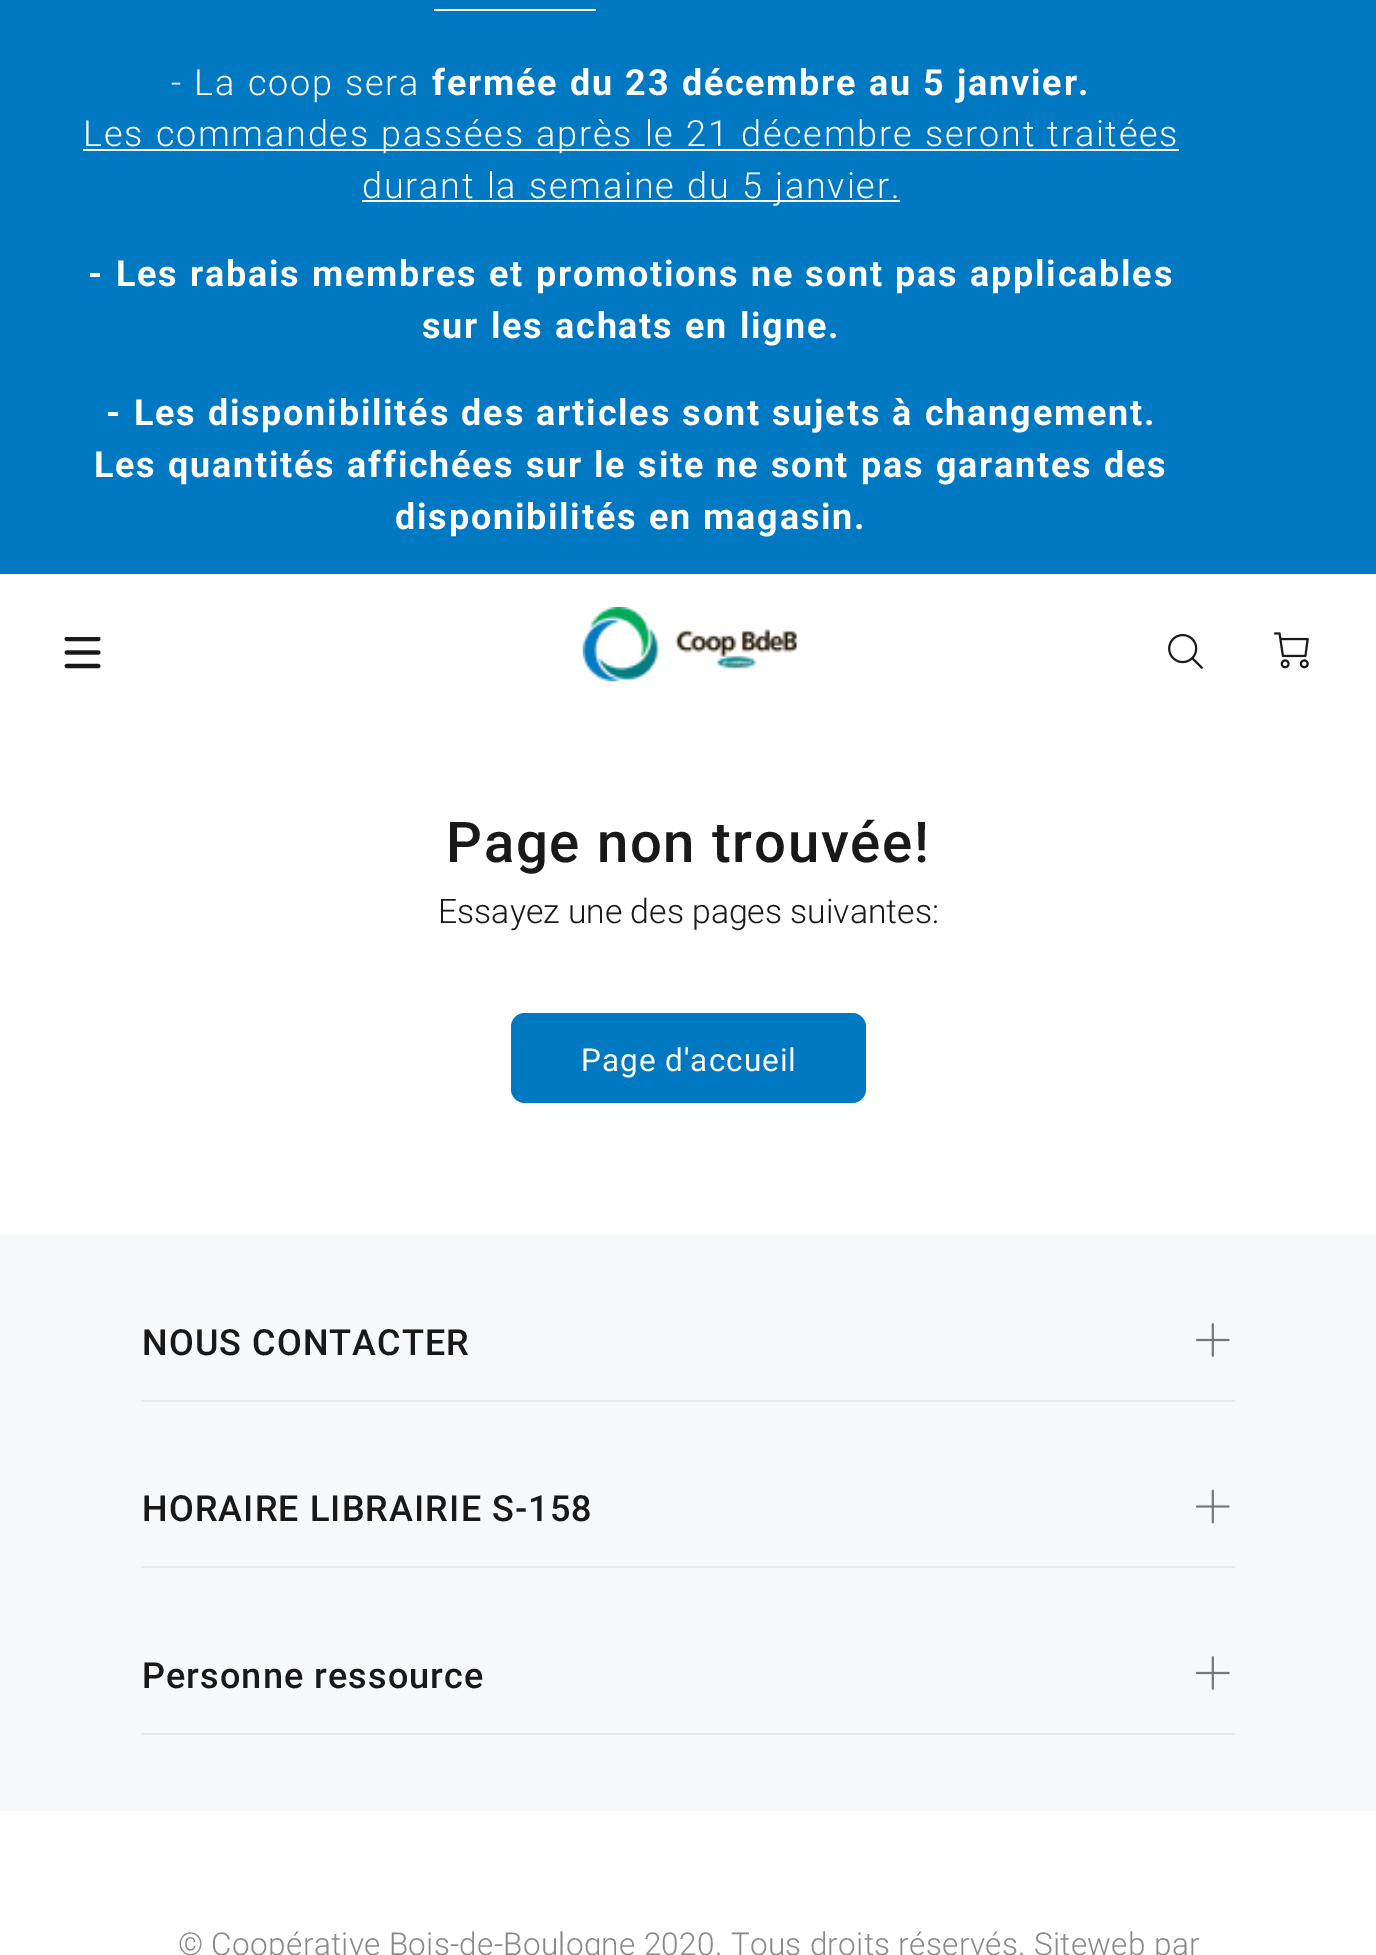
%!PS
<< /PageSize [1376 1955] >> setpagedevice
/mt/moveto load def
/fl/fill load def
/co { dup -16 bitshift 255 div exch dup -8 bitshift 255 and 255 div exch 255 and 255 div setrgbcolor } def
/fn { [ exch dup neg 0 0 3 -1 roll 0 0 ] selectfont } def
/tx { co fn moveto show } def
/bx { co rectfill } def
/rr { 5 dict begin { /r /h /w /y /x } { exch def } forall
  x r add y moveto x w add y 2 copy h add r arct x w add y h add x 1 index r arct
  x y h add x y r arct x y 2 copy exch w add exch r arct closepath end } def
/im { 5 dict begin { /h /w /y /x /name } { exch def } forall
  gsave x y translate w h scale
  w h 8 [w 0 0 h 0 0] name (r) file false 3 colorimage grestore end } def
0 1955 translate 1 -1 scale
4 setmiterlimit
0 0 1376 1955 16#F7F8FA bx
0 574 1376 661 16#FFFFFF bx
0 0 1376 574 16#0079C2 bx
434 9 162 2 16#FFFFFF bx
83 149 1096 2 16#FFFFFF bx
362 200 538 2 16#FFFFFF bx
(media/1.raw) 64 637 37 32 im
(media/2.raw) 582 607 215 75 im
(media/3.raw) 1168 633 35 36 im
(media/4.raw) 1273 632 36 37 im
16#0079C2 co
511 1013 355 90 14 rr fl
142 1400 1093 2 16#E9E7E7 bx
(media/5.raw) 1196 1323 34 34 im
142 1566 1093 2 16#E9E7E7 bx
(media/6.raw) 1195 1489 35 35 im
142 1733 1093 2 16#E9E7E7 bx
(media/5.raw) 1196 1656 34 34 im
0 1811 1376 144 16#FFFFFF bx
/Roboto-Light 36 fn
171 95 mt .9 0 32 1.75 0 (- La coop sera) awidthshow
/Roboto-Bold 36 fn
432 95 mt .9 0 32 1.75 0 (fermée du 23 décembre au) awidthshow
923 95 mt .9 0 32 1.75 0 (5 janvier.) awidthshow
/Roboto-Light 36 fn
83 146 mt .9 0 32 1.75 0 (Les commandes passées après le 21 décembre seront traitées) awidthshow
362 198 mt .9 0 32 1.75 0 (durant la semaine du 5 janvier.) awidthshow
/Roboto-Bold 36 fn
88 286 mt .9 0 32 1.75 0 (- Les rabais membres et promotions ne sont pas applicables) awidthshow
422 338 mt .9 0 32 1.75 0 (sur les achats en ligne.) awidthshow
106 425 mt .9 0 32 1.75 0 (- Les disponibilités des articles sont sujets à changement.) awidthshow
94 477 mt .9 0 32 1.75 0 (Les quantités affichées sur le site ne sont pas garantes des) awidthshow
395 529 mt .9 0 32 1.75 0 (disponibilités en magasin.) awidthshow
/Roboto-Medium 56.25 fn
16#191919 co
446 862 mt 1.7 0 (Page non trouvée!) ashow
(Essayez une des pages suivantes:) 438 923 /Roboto-Light 33.75 16#191919 tx
/Roboto-Regular 31.5 fn
16#FFFFFF co
581 1071 mt 1 0 (Page d'accueil) ashow
/Roboto-Medium 36 fn
16#191919 co
142 1355 mt 1.1 0 (NOUS CONTACTER) ashow
142 1521 mt 1.1 0 (HORAIRE LIBRAIRIE S-158) ashow
142 1688 mt 1.1 0 (Personne ressource) ashow
/Roboto-Light 31.5 fn
16#888888 co
178 1955 mt .32 0 (© Coopérative Bois-de-Boulogne 2020. Tous droits réservés. Siteweb par) ashow
showpage
